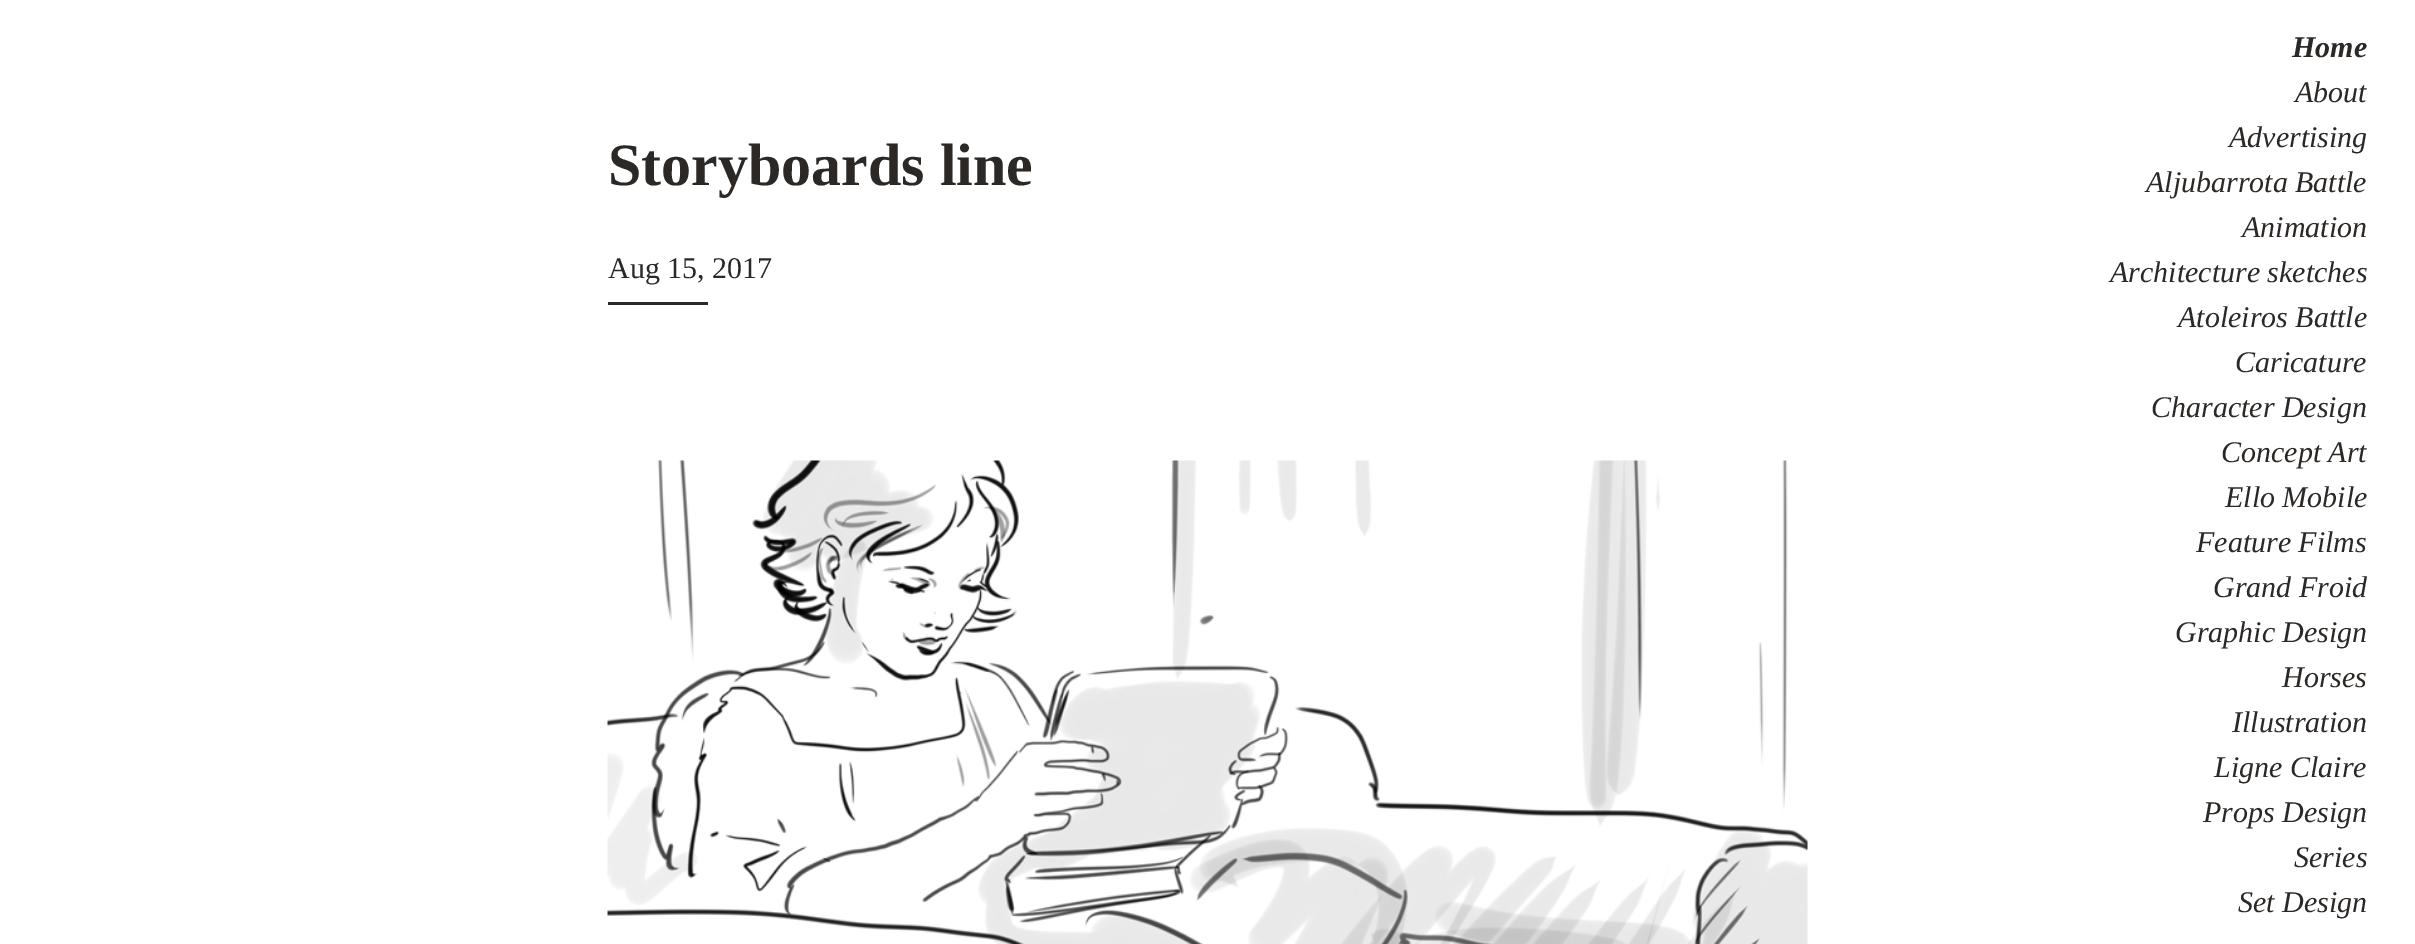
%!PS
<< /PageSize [2415 944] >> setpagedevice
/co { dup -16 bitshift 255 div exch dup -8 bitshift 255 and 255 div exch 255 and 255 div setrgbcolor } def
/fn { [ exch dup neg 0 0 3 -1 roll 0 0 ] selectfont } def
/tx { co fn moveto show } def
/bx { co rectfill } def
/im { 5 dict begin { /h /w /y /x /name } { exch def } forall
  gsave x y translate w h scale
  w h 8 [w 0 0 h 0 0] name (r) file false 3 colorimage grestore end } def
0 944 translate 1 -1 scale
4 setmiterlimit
0 0 2415 944 16#FFFFFF bx
608 302 100 3 16#2B2826 bx
(media/1.raw) 607 460 1201 484 im
(Storyboards line) 608 185 /LiberationSerif-Bold 60 16#2B2826 tx
(Aug 15, 2017) 608 278 /LiberationSerif-Regular 30 16#2B2826 tx
(Home) 2292 57 /LiberationSerif-BoldItalic 30 16#2B2826 tx
(About) 2295 102 /LiberationSerif-Italic 30 16#2B2826 tx
(Advertising) 2229 147 /LiberationSerif-Italic 30 16#2B2826 tx
(Aljubarrota Battle) 2146 192 /LiberationSerif-Italic 30 16#2B2826 tx
(Animation) 2242 237 /LiberationSerif-Italic 30 16#2B2826 tx
(Architecture sketches) 2110 282 /LiberationSerif-Italic 30 16#2B2826 tx
(Atoleiros Battle) 2178 327 /LiberationSerif-Italic 30 16#2B2826 tx
(Caricature) 2235 372 /LiberationSerif-Italic 30 16#2B2826 tx
(Character Design) 2151 417 /LiberationSerif-Italic 30 16#2B2826 tx
(Concept Art) 2221 462 /LiberationSerif-Italic 30 16#2B2826 tx
(Ello Mobile) 2225 507 /LiberationSerif-Italic 30 16#2B2826 tx
(Feature Films) 2196 552 /LiberationSerif-Italic 30 16#2B2826 tx
(Grand Froid) 2213 597 /LiberationSerif-Italic 30 16#2B2826 tx
(Graphic Design) 2175 642 /LiberationSerif-Italic 30 16#2B2826 tx
(Horses) 2282 687 /LiberationSerif-Italic 30 16#2B2826 tx
(Illustration) 2232 732 /LiberationSerif-Italic 30 16#2B2826 tx
(Ligne Claire) 2214 777 /LiberationSerif-Italic 30 16#2B2826 tx
(Props Design) 2203 822 /LiberationSerif-Italic 30 16#2B2826 tx
(Series) 2294 867 /LiberationSerif-Italic 30 16#2B2826 tx
(Set Design) 2238 912 /LiberationSerif-Italic 30 16#2B2826 tx
showpage
